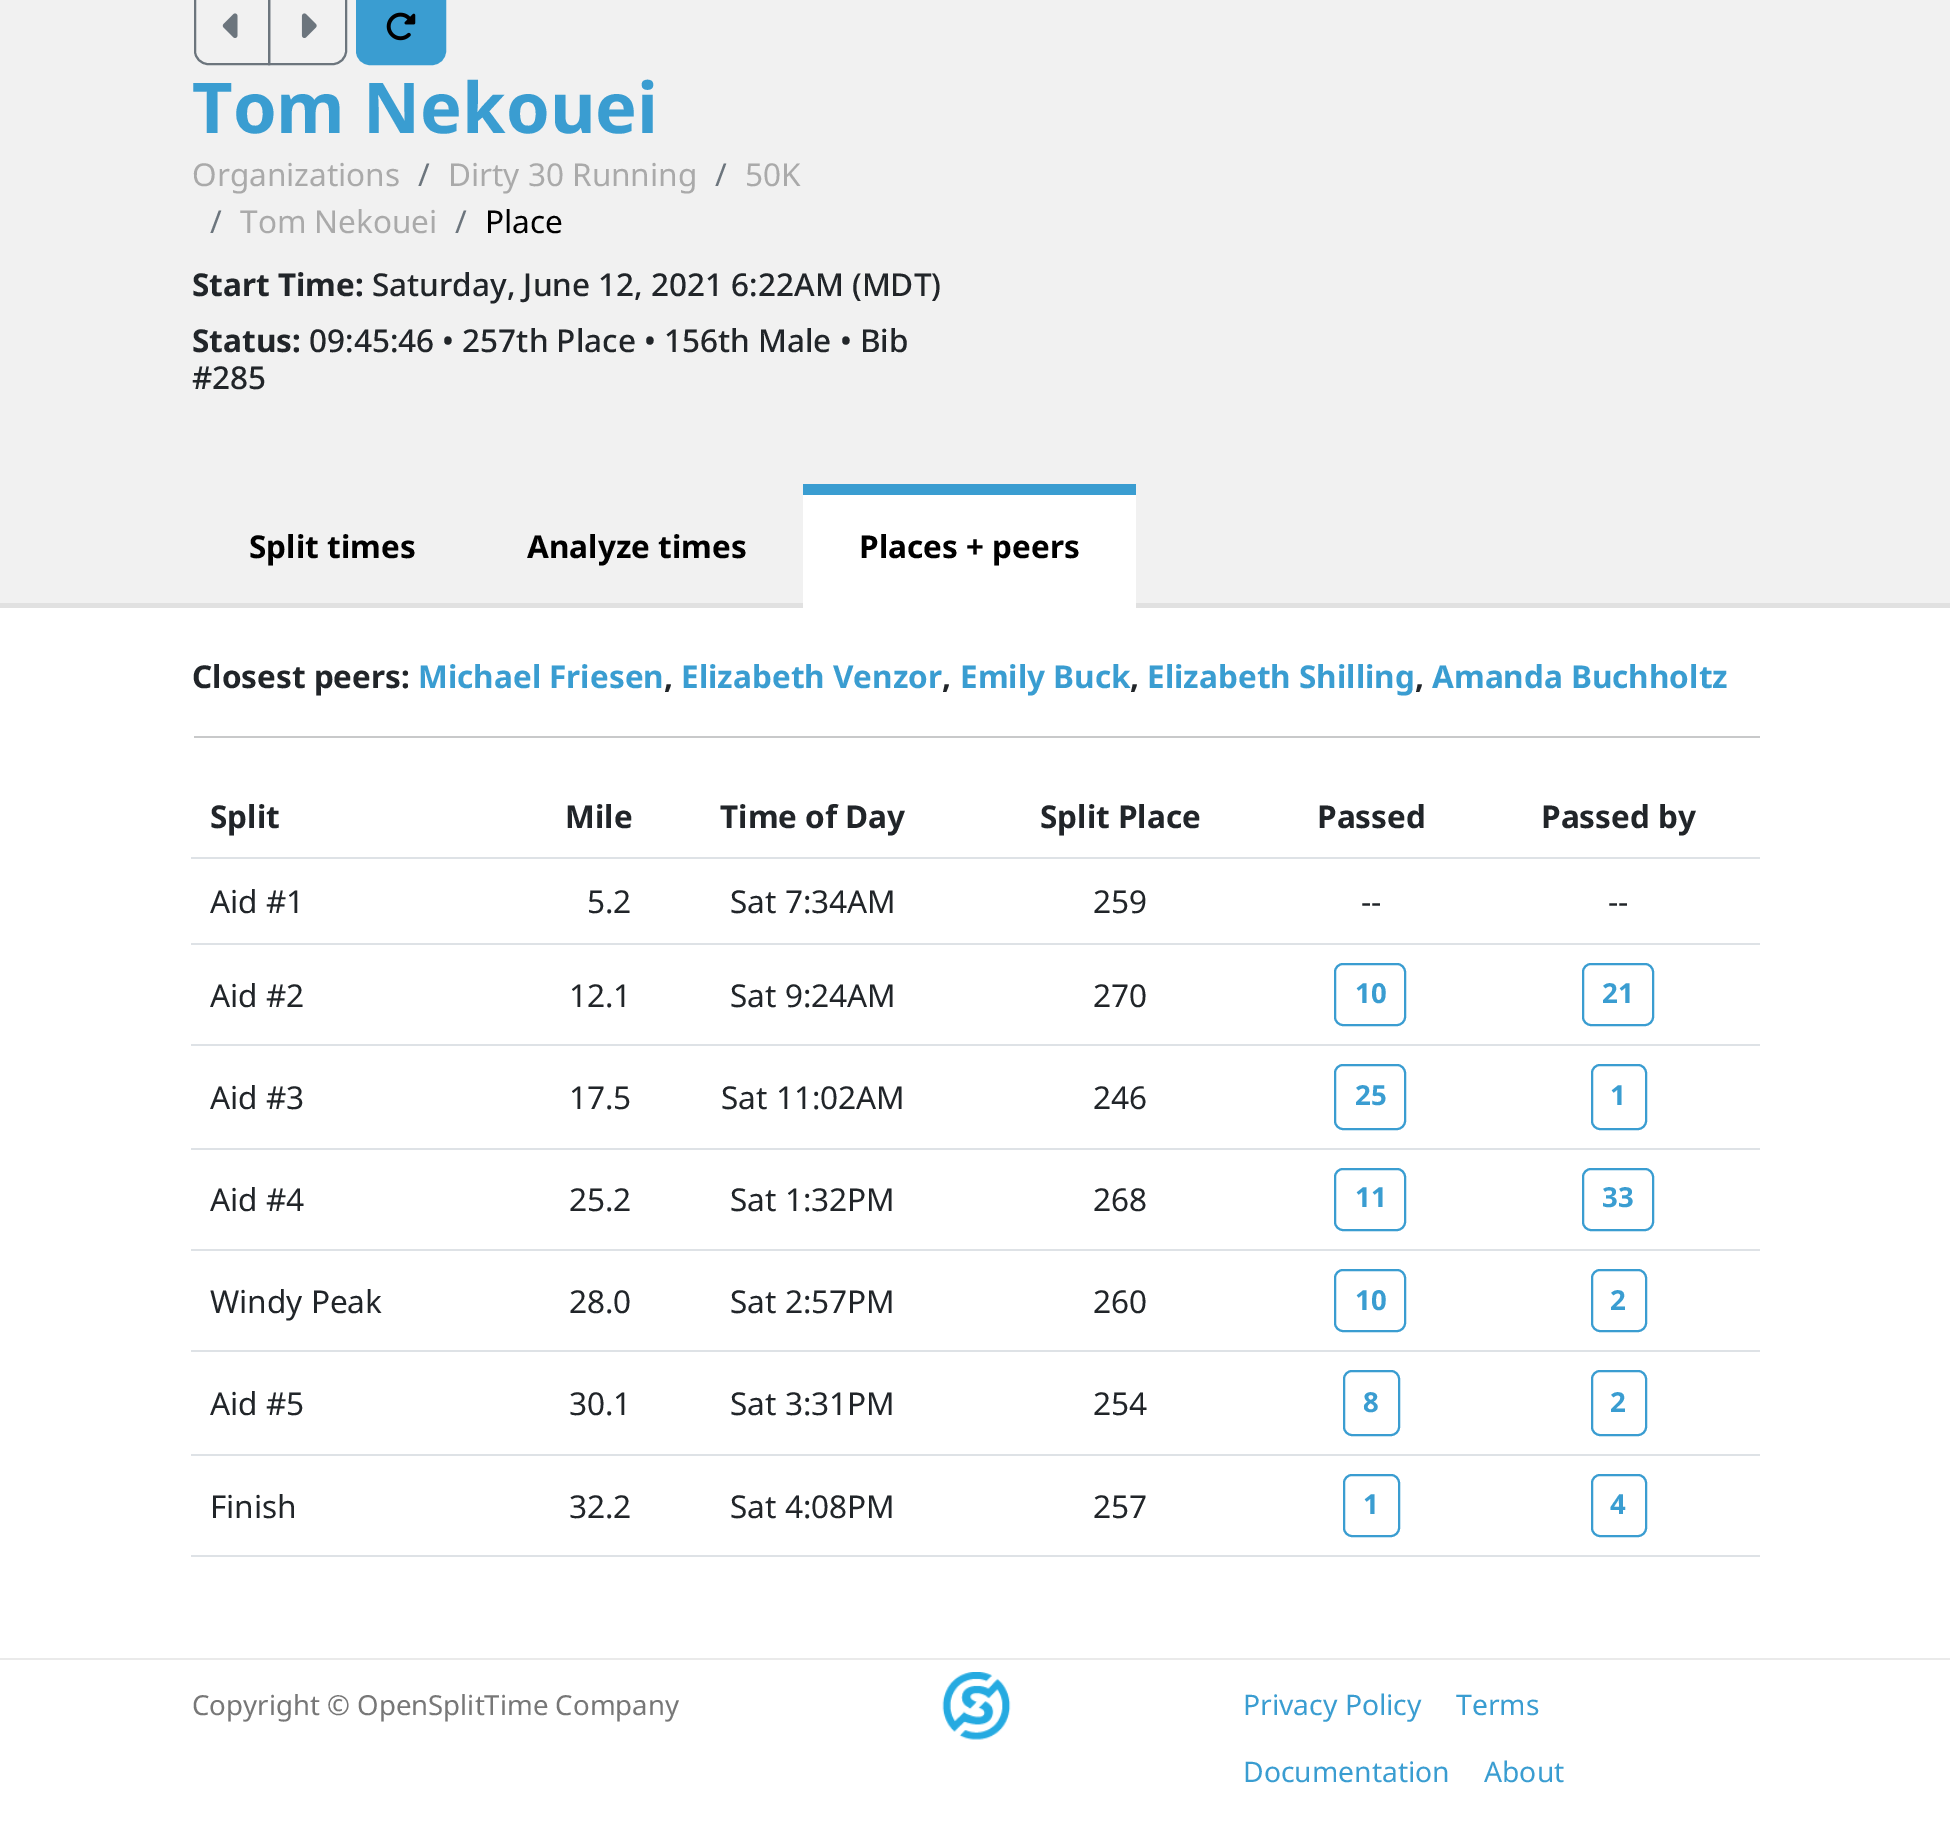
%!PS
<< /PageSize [1950 1842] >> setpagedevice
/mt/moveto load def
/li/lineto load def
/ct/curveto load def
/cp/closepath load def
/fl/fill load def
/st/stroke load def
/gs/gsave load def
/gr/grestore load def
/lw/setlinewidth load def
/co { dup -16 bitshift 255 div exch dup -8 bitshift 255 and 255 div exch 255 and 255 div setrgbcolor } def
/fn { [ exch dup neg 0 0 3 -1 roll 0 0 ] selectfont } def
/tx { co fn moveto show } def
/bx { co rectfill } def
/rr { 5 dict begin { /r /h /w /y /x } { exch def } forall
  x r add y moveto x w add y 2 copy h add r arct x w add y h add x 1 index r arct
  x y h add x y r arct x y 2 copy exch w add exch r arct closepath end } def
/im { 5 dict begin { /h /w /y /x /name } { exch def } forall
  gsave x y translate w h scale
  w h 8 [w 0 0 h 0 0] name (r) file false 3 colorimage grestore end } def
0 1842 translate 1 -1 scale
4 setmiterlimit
0 0 1950 1842 16#FFFFFF bx
0 0 1950 603 16#F1F1F1 bx
0 603 1950 5 16#E1E1E1 bx
16#6C757D co
2 lw
208 -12 mt 269 -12 li 269 64 li 208 64 li 201 64 195 58 195 51 ct 195 1 li 195 -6 201 -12 208 -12 ct cp st
(media/1.raw) 222 13 16 25 im
269 -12 mt 333 -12 li 340 -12 346 -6 346 1 ct 346 51 li 346 58 340 64 333 64 ct 269 64 li cp st
(media/2.raw) 301 13 16 25 im
16#3A9DD1 co
357 -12 88 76 13 rr gs fl gr
st
(media/3.raw) 386 12 30 29 im
803 495 333 113 16#FFFFFF bx
803 484 333 11 16#3A9DD1 bx
194 736 1566 2 16#C8C9CA bx
191 857 1569 2 16#DEE2E6 bx
191 943 1569 2 16#DEE2E6 bx
16#3A9DD1 co
1335 964 70 61 8 rr st
191 1044 1569 2 16#DEE2E6 bx
16#3A9DD1 co
1583 964 70 61 8 rr st
1335 1065 70 64 8 rr st
191 1148 1569 2 16#DEE2E6 bx
16#3A9DD1 co
1592 1065 54 64 8 rr st
1335 1169 70 61 8 rr st
191 1249 1569 2 16#DEE2E6 bx
16#3A9DD1 co
1583 1169 70 61 8 rr st
1335 1270 70 61 8 rr st
191 1350 1569 2 16#DEE2E6 bx
16#3A9DD1 co
1592 1270 54 61 8 rr st
1344 1371 55 64 8 rr st
191 1454 1569 2 16#DEE2E6 bx
16#3A9DD1 co
1592 1371 54 64 8 rr st
1344 1475 55 61 8 rr st
191 1555 1569 2 16#DEE2E6 bx
16#3A9DD1 co
1592 1475 54 61 8 rr st
0 1658 1950 2 16#EAEAEA bx
(media/4.raw) 942 1672 69 68 im
(Tom Nekouei) 192 133 /NotoSans-Bold 70.25 16#3A9DD1 tx
(Organizations) 192 186 /NotoSans-Regular 31.5 16#AAAAAA tx
(/) 418 186 /NotoSans-Regular 31.5 16#6C757D tx
(Dirty 30 Running) 448 186 /NotoSans-Regular 31.5 16#AAAAAA tx
(/) 715 186 /NotoSans-Regular 31.5 16#6C757D tx
(50K) 745 186 /NotoSans-Regular 31.5 16#AAAAAA tx
(/) 210 233 /NotoSans-Regular 31.5 16#6C757D tx
(Tom Nekouei) 240 233 /NotoSans-Regular 31.5 16#AAAAAA tx
(/) 455 233 /NotoSans-Regular 31.5 16#6C757D tx
(Place) 485 233 /NotoSans-Regular 31.5 16#000000 tx
(Start Time:) 192 296 /NotoSans-Bold 31.5 16#212529 tx
(Saturday, June 12, 2021 6:22AM \(MDT\)) 372 296 /NotoSans-Medium 31.5 16#212529 tx
(Status:) 192 352 /NotoSans-Bold 31.5 16#212529 tx
(09:45:46 • 257th Place • 156th Male • Bib) 309 352 /NotoSans-Medium 31.5 16#212529 tx
(#285) 192 389 /NotoSans-Medium 31.5 16#212529 tx
(Split times) 249 558 /NotoSans-Bold 31.5 16#000000 tx
(Analyze times) 527 558 /NotoSans-Bold 31.5 16#000000 tx
(Places + peers) 859 558 /NotoSans-Bold 31.5 16#000000 tx
(Closest peers:) 192 688 /NotoSans-Bold 31.5 16#212529 tx
(Michael Friesen) 418 688 /NotoSans-Bold 31.5 16#3A9DD1 tx
(,) 664 688 /NotoSans-Bold 31.5 16#212529 tx
(Elizabeth Venzor) 681 688 /NotoSans-Bold 31.5 16#3A9DD1 tx
(,) 942 688 /NotoSans-Bold 31.5 16#212529 tx
(Emily Buck) 960 688 /NotoSans-Bold 31.5 16#3A9DD1 tx
(,) 1130 688 /NotoSans-Bold 31.5 16#212529 tx
(Elizabeth Shilling) 1147 688 /NotoSans-Bold 31.5 16#3A9DD1 tx
(,) 1415 688 /NotoSans-Bold 31.5 16#212529 tx
(Amanda Buchholtz) 1432 688 /NotoSans-Bold 31.5 16#3A9DD1 tx
(Split) 210 828 /NotoSans-Bold 31.5 16#212529 tx
(Mile) 565 828 /NotoSans-Bold 31.5 16#212529 tx
(Time of Day) 720 828 /NotoSans-Bold 31.5 16#212529 tx
(Split Place) 1040 828 /NotoSans-Bold 31.5 16#212529 tx
(Passed) 1317 828 /NotoSans-Bold 31.5 16#212529 tx
(Passed by) 1541 828 /NotoSans-Bold 31.5 16#212529 tx
(Aid #1) 210 913 /NotoSans-Regular 31.5 16#212529 tx
(5.2) 587 913 /NotoSans-Regular 31.5 16#212529 tx
(Sat 7:34AM) 730 913 /NotoSans-Regular 31.5 16#212529 tx
(259) 1093 913 /NotoSans-Regular 31.5 16#212529 tx
(--) 1361 913 /NotoSans-Regular 31.5 16#212529 tx
(--) 1608 913 /NotoSans-Regular 31.5 16#212529 tx
(Aid #2) 210 1007 /NotoSans-Regular 31.5 16#212529 tx
(12.1) 569 1007 /NotoSans-Regular 31.5 16#212529 tx
(Sat 9:24AM) 730 1007 /NotoSans-Regular 31.5 16#212529 tx
(270) 1093 1007 /NotoSans-Regular 31.5 16#212529 tx
(10) 1355 1003 /NotoSans-Bold 27.6 16#3A9DD1 tx
(21) 1602 1003 /NotoSans-Bold 27.6 16#3A9DD1 tx
(Aid #3) 210 1109 /NotoSans-Regular 31.5 16#212529 tx
(17.5) 569 1109 /NotoSans-Regular 31.5 16#212529 tx
(Sat 11:02AM) 721 1109 /NotoSans-Regular 31.5 16#212529 tx
(246) 1093 1109 /NotoSans-Regular 31.5 16#212529 tx
(25) 1355 1105 /NotoSans-Bold 27.6 16#3A9DD1 tx
(1) 1610 1105 /NotoSans-Bold 27.6 16#3A9DD1 tx
(Aid #4) 210 1211 /NotoSans-Regular 31.5 16#212529 tx
(25.2) 569 1211 /NotoSans-Regular 31.5 16#212529 tx
(Sat 1:32PM) 730 1211 /NotoSans-Regular 31.5 16#212529 tx
(268) 1093 1211 /NotoSans-Regular 31.5 16#212529 tx
(11) 1355 1207 /NotoSans-Bold 27.6 16#3A9DD1 tx
(33) 1602 1207 /NotoSans-Bold 27.6 16#3A9DD1 tx
(Windy Peak) 210 1313 /NotoSans-Regular 31.5 16#212529 tx
(28.0) 569 1313 /NotoSans-Regular 31.5 16#212529 tx
(Sat 2:57PM) 730 1313 /NotoSans-Regular 31.5 16#212529 tx
(260) 1093 1313 /NotoSans-Regular 31.5 16#212529 tx
(10) 1355 1310 /NotoSans-Bold 27.6 16#3A9DD1 tx
(2) 1610 1310 /NotoSans-Bold 27.6 16#3A9DD1 tx
(Aid #5) 210 1415 /NotoSans-Regular 31.5 16#212529 tx
(30.1) 569 1415 /NotoSans-Regular 31.5 16#212529 tx
(Sat 3:31PM) 730 1415 /NotoSans-Regular 31.5 16#212529 tx
(254) 1093 1415 /NotoSans-Regular 31.5 16#212529 tx
(8) 1363 1412 /NotoSans-Bold 27.6 16#3A9DD1 tx
(2) 1610 1412 /NotoSans-Bold 27.6 16#3A9DD1 tx
(Finish) 210 1518 /NotoSans-Regular 31.5 16#212529 tx
(32.2) 569 1518 /NotoSans-Regular 31.5 16#212529 tx
(Sat 4:08PM) 730 1518 /NotoSans-Regular 31.5 16#212529 tx
(257) 1093 1518 /NotoSans-Regular 31.5 16#212529 tx
(1) 1363 1514 /NotoSans-Bold 27.6 16#3A9DD1 tx
(4) 1610 1514 /NotoSans-Bold 27.6 16#3A9DD1 tx
(Copyright © OpenSplitTime Company) 192 1715 /NotoSans-Regular 27.6 16#777777 tx
(Privacy Policy) 1243 1715 /NotoSans-Regular 28.25 16#3A9DD1 tx
(Terms) 1456 1715 /NotoSans-Regular 28.25 16#3A9DD1 tx
(Documentation) 1243 1782 /NotoSans-Regular 28.25 16#3A9DD1 tx
(About) 1484 1782 /NotoSans-Regular 28.25 16#3A9DD1 tx
showpage
